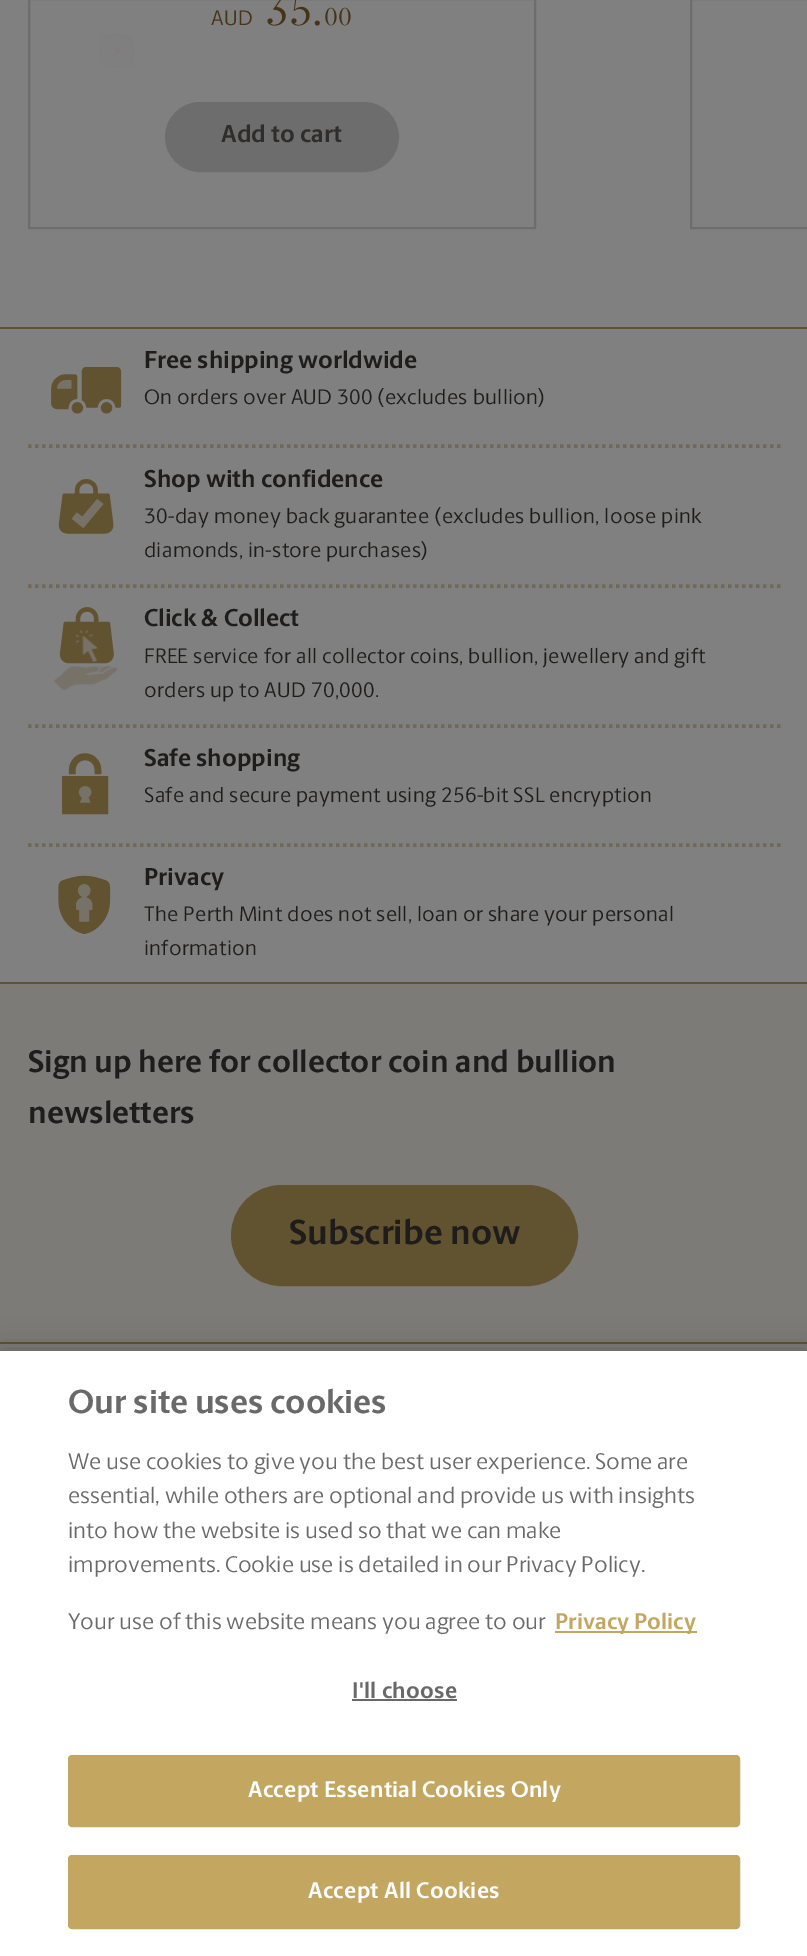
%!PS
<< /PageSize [807 1956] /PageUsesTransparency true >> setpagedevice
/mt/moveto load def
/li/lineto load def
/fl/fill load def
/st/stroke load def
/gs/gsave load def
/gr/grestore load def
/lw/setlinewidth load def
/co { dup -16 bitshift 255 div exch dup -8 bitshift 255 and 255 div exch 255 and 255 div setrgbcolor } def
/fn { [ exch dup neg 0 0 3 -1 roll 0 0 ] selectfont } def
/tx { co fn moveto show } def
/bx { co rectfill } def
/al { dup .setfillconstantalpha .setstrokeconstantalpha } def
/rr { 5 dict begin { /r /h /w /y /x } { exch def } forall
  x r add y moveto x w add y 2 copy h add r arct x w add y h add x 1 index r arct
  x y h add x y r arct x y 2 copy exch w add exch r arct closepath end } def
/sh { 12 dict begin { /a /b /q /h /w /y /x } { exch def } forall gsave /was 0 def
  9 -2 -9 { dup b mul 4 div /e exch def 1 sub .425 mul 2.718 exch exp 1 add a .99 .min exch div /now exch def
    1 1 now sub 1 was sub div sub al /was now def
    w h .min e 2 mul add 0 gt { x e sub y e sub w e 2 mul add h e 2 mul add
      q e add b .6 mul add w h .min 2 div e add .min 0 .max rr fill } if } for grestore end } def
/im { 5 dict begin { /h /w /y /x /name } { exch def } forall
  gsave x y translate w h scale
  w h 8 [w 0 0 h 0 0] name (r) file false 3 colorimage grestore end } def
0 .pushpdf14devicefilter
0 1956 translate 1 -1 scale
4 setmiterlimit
0 0 807 1956 16#808080 bx
16#6D6D6D co
2 lw
29 -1 506 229 rectstroke
166 103 232 68 34 rr gs fl gr
st
691 -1 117 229 rectstroke
0 327 807 2 16#625330 bx
16#716958 co
3.5 lw
[3.5 3.5] 0 setdash
28 446 mt 780.5 446 li st
(media/1.raw) 51 367 71 47 im
28 586 mt 780.5 586 li st
(media/2.raw) 58 479 56 55 im
28 726 mt 780.5 726 li st
(media/3.raw) 54 607 64 83 im
28 845 mt 780.5 845 li st
(media/4.raw) 62 753 47 62 im
(media/5.raw) 58 875 53 59 im
0 984 807 358 16#7D7B78 bx
0 982 807 2 16#625330 bx
232 1186 345 99 49.5 rr gs fl gr
2 lw
[] 0 setdash
st
0 1344 807 7 16#7D7B78 bx
0 1342 807 2 16#625330 bx
(media/6.raw) 100 34 34 34 im
16#000000 co
0 1351 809 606 0 16 .2 sh
0 1351 807 605 16#FFFFFF bx
555 1631 142 2 16#C3A660 bx
352 1699 105 2 16#696969 bx
16#C3A660 co
69 1756 670 70 3 rr gs fl gr
st
69 1856 670 72 3 rr gs fl gr
st
/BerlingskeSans-Regular 21 fn
16#453416 co
211 25 mt .3 0 (AUD) ashow
(35.) 265 25 /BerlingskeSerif-Regular 42 16#453416 tx
(00) 324 25 /BerlingskeSerif-Regular 24.5 16#453416 tx
(Add to cart) 221 142 /BerlingskeSans-Bold 24.5 16#2F2D2B tx
(Free shipping worldwide) 144 368 /BerlingskeSans-Bold 24.5 16#1F1D1B tx
/BerlingskeSans-Regular 21 fn
144 404 mt .3 0 (On orders over AUD 300 \(excludes bullion\)) ashow
(Shop with confidence) 144 487 /BerlingskeSans-Bold 24.5 16#1F1D1B tx
/BerlingskeSans-Regular 21 fn
144 523 mt .3 0 (30-day money back guarantee \(excludes bullion, loose pink) ashow
144 557 mt .3 0 (diamonds, in-store purchases\)) ashow
(Click & Collect) 144 626 /BerlingskeSans-Bold 24.5 16#1F1D1B tx
/BerlingskeSans-Regular 21 fn
144 663 mt .3 0 (FREE service for all collector coins, bullion, jewellery and gift) ashow
144 697 mt .3 0 (orders up to AUD 70,000.) ashow
(Safe shopping) 144 766 /BerlingskeSans-Bold 24.5 16#1F1D1B tx
/BerlingskeSans-Regular 21 fn
144 802 mt .3 0 (Safe and secure payment using 256-bit SSL encryption) ashow
(Privacy) 144 885 /BerlingskeSans-Bold 24.5 16#1F1D1B tx
/BerlingskeSans-Regular 21 fn
144 921 mt .3 0 (The Perth Mint does not sell, loan or share your personal) ashow
144 955 mt .3 0 (information) ashow
(Sign up here for collector coin and bullion) 28 1072 /BerlingskeSans-Bold 31.5 16#1F1D1B tx
(newsletters) 28 1123 /BerlingskeSans-Bold 31.5 16#1F1D1B tx
(Subscribe now) 289 1244 /BerlingskeSans-Bold 35 16#1F1D1B tx
(Our site uses cookies) 68 1413 /BerlingskeSans-Bold 33.5 16#696969 tx
(We use cookies to give you the best user experience. Some are) 68 1469 /BerlingskeSans-Regular 22.75 16#696969 tx
(essential, while others are optional and provide us with insights) 68 1503 /BerlingskeSans-Regular 22.75 16#696969 tx
(into how the website is used so that we can make) 68 1538 /BerlingskeSans-Regular 22.75 16#696969 tx
(improvements. Cookie use is detailed in our Privacy Policy.) 68 1572 /BerlingskeSans-Regular 22.75 16#696969 tx
(Your use of this website means you agree to our) 68 1629 /BerlingskeSans-Regular 22.75 16#696969 tx
(Privacy Policy) 555 1629 /BerlingskeSans-Bold 22.75 16#C3A660 tx
16#696969 co
352 1698 mt .25 0 (I'll choose) ashow
16#FFFFFF co
248 1797 mt .25 0 (Accept Essential Cookies Only) ashow
308 1898 mt .25 0 (Accept All Cookies) ashow
.poppdf14devicefilter showpage
